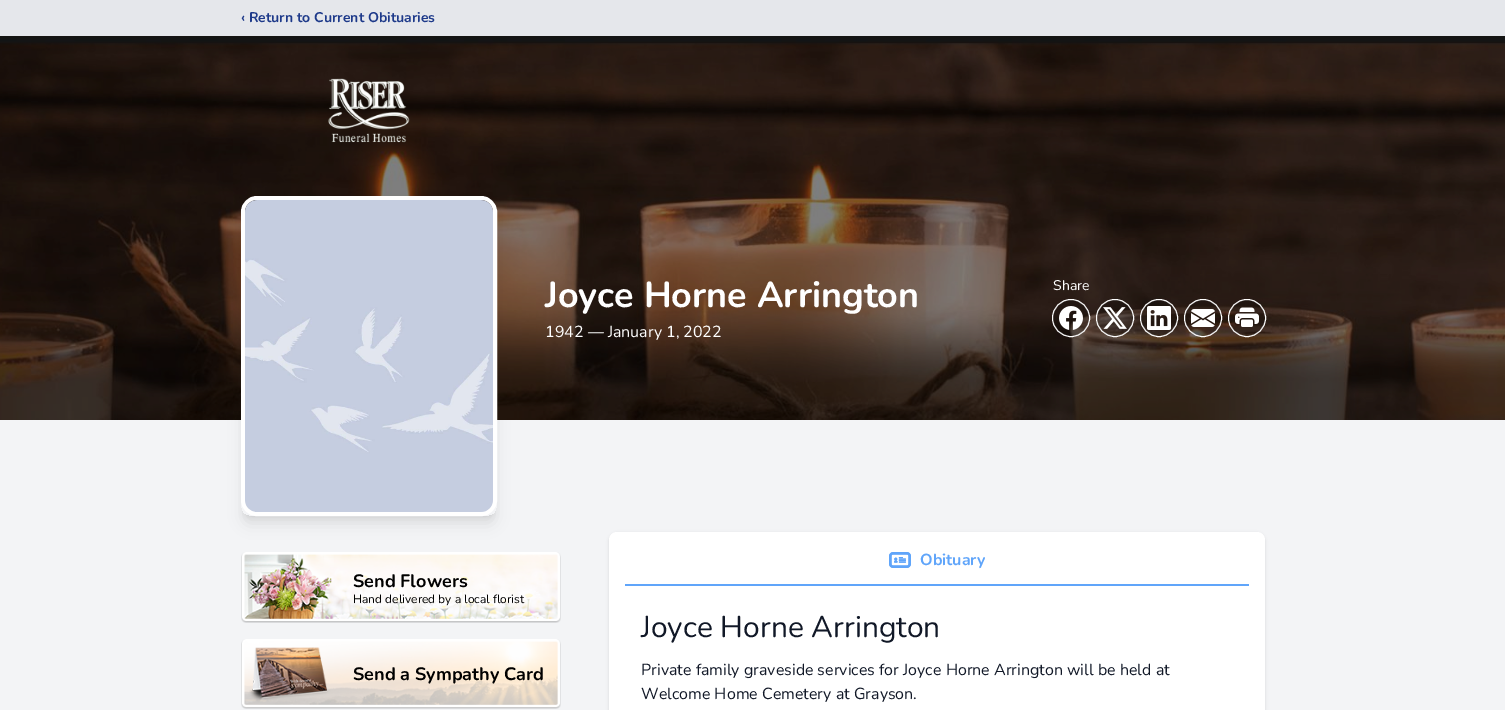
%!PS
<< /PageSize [1505 710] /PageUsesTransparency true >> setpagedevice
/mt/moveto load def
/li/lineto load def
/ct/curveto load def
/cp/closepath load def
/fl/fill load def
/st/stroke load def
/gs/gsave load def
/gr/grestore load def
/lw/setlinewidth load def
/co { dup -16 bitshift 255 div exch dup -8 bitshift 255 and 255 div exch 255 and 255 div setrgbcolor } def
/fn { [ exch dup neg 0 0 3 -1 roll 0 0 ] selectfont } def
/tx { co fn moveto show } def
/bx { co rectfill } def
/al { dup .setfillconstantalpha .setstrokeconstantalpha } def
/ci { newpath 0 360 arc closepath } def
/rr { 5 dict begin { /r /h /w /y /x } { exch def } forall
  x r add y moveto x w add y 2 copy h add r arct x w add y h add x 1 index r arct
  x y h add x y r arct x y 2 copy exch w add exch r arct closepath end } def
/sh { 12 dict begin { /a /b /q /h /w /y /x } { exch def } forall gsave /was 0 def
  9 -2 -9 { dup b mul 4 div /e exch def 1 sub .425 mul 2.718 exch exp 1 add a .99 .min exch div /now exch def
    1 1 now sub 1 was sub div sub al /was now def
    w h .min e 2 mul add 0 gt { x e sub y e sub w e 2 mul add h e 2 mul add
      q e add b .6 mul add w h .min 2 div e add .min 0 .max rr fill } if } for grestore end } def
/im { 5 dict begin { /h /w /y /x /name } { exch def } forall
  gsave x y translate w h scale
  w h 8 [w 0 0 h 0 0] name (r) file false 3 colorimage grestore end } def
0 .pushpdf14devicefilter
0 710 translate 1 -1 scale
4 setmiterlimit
0 0 1505 710 16#F3F4F6 bx
0 0 1505 36 16#E5E7EB bx
(media/1.raw) 0 36 1505 384 im
(media/2.raw) 328 78 82 65 im
gs
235 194 mt 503 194 li 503 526 li 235 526 li cp 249 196 mt 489 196 li 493.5 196 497 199.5 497 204 ct 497 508 li 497 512.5 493.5 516 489 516 ct 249 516 li 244.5 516 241 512.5 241 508 ct 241 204 li 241 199.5 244.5 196 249 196 ct cp eoclip newpath
16#000000 co
245 204 248 312 4 3 .1 sh
gr
gs
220 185 mt 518 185 li 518 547 li 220 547 li cp 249 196 mt 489 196 li 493.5 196 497 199.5 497 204 ct 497 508 li 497 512.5 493.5 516 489 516 ct 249 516 li 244.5 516 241 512.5 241 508 ct 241 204 li 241 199.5 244.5 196 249 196 ct cp eoclip newpath
16#000000 co
244 209 250 314 5 7.5 .1 sh
gr
16#FFFFFF co
4 lw
243 198 252 316 14 rr st
(media/3.raw) 245 200 248 312 im
1 lw
1071 318 18.5 ci st
0.2 al
16#000000 co
1071 318 18 ci fl
1 al
(media/4.raw) 1059 306 24 24 im
16#FFFFFF co
1115 318 18.5 ci st
0.2 al
16#000000 co
1115 318 18 ci fl
1 al
(media/5.raw) 1103 307 24 22 im
16#FFFFFF co
1159 318 18.5 ci st
0.2 al
16#000000 co
1159 318 18 ci fl
1 al
(media/6.raw) 1147 306 24 24 im
16#FFFFFF co
1203 318 18.5 ci st
0.2 al
16#000000 co
1203 318 18 ci fl
1 al
(media/7.raw) 1191 309 24 18 im
16#FFFFFF co
1247 318 18.5 ci st
0.2 al
16#000000 co
1247 318 18 ci fl
1 al
(media/8.raw) 1235 307 24 20 im
(media/9.raw) 241 552 320 71 im
(media/10.raw) 241 639 320 70 im
609 533 656 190 8 1.5 .1 sh
16#FFFFFF co
609 532 656 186 8 rr fl
625 584 624 2 16#60A5FA bx
(media/11.raw) 889 552 22 16 im
(‹ Return to Current Obituaries) 241 22 /Nunito-Bold 14 16#1E3A8A tx
(Joyce Horne Arrington) 545 307 /Nunito-Bold 36 16#FFFFFF tx
(1942 — January 1, 2022) 545 337 /Nunito-Regular 16 16#FFFFFF tx
(Share) 1053 290 /Nunito-Regular 14 16#FFFFFF tx
(Send Flowers) 353 587 /Nunito-Bold 18 16#000000 tx
(Hand delivered by a local florist) 353 603 /Nunito-Regular 12 16#000000 tx
(Send a Sympathy Card) 353 680 /Nunito-Bold 18 16#000000 tx
(Obituary) 920 565 /Nunito-Bold 16 16#60A5FA tx
(Joyce Horne Arrington) 641 637 /Nunito-Regular 30 16#111827 tx
(Private family graveside services for Joyce Horne Arrington will be held at) 641 675 /Nunito-Regular 16 16#111827 tx
(Welcome Home Cemetery at Grayson.) 641 699 /Nunito-Regular 16 16#111827 tx
.poppdf14devicefilter showpage
